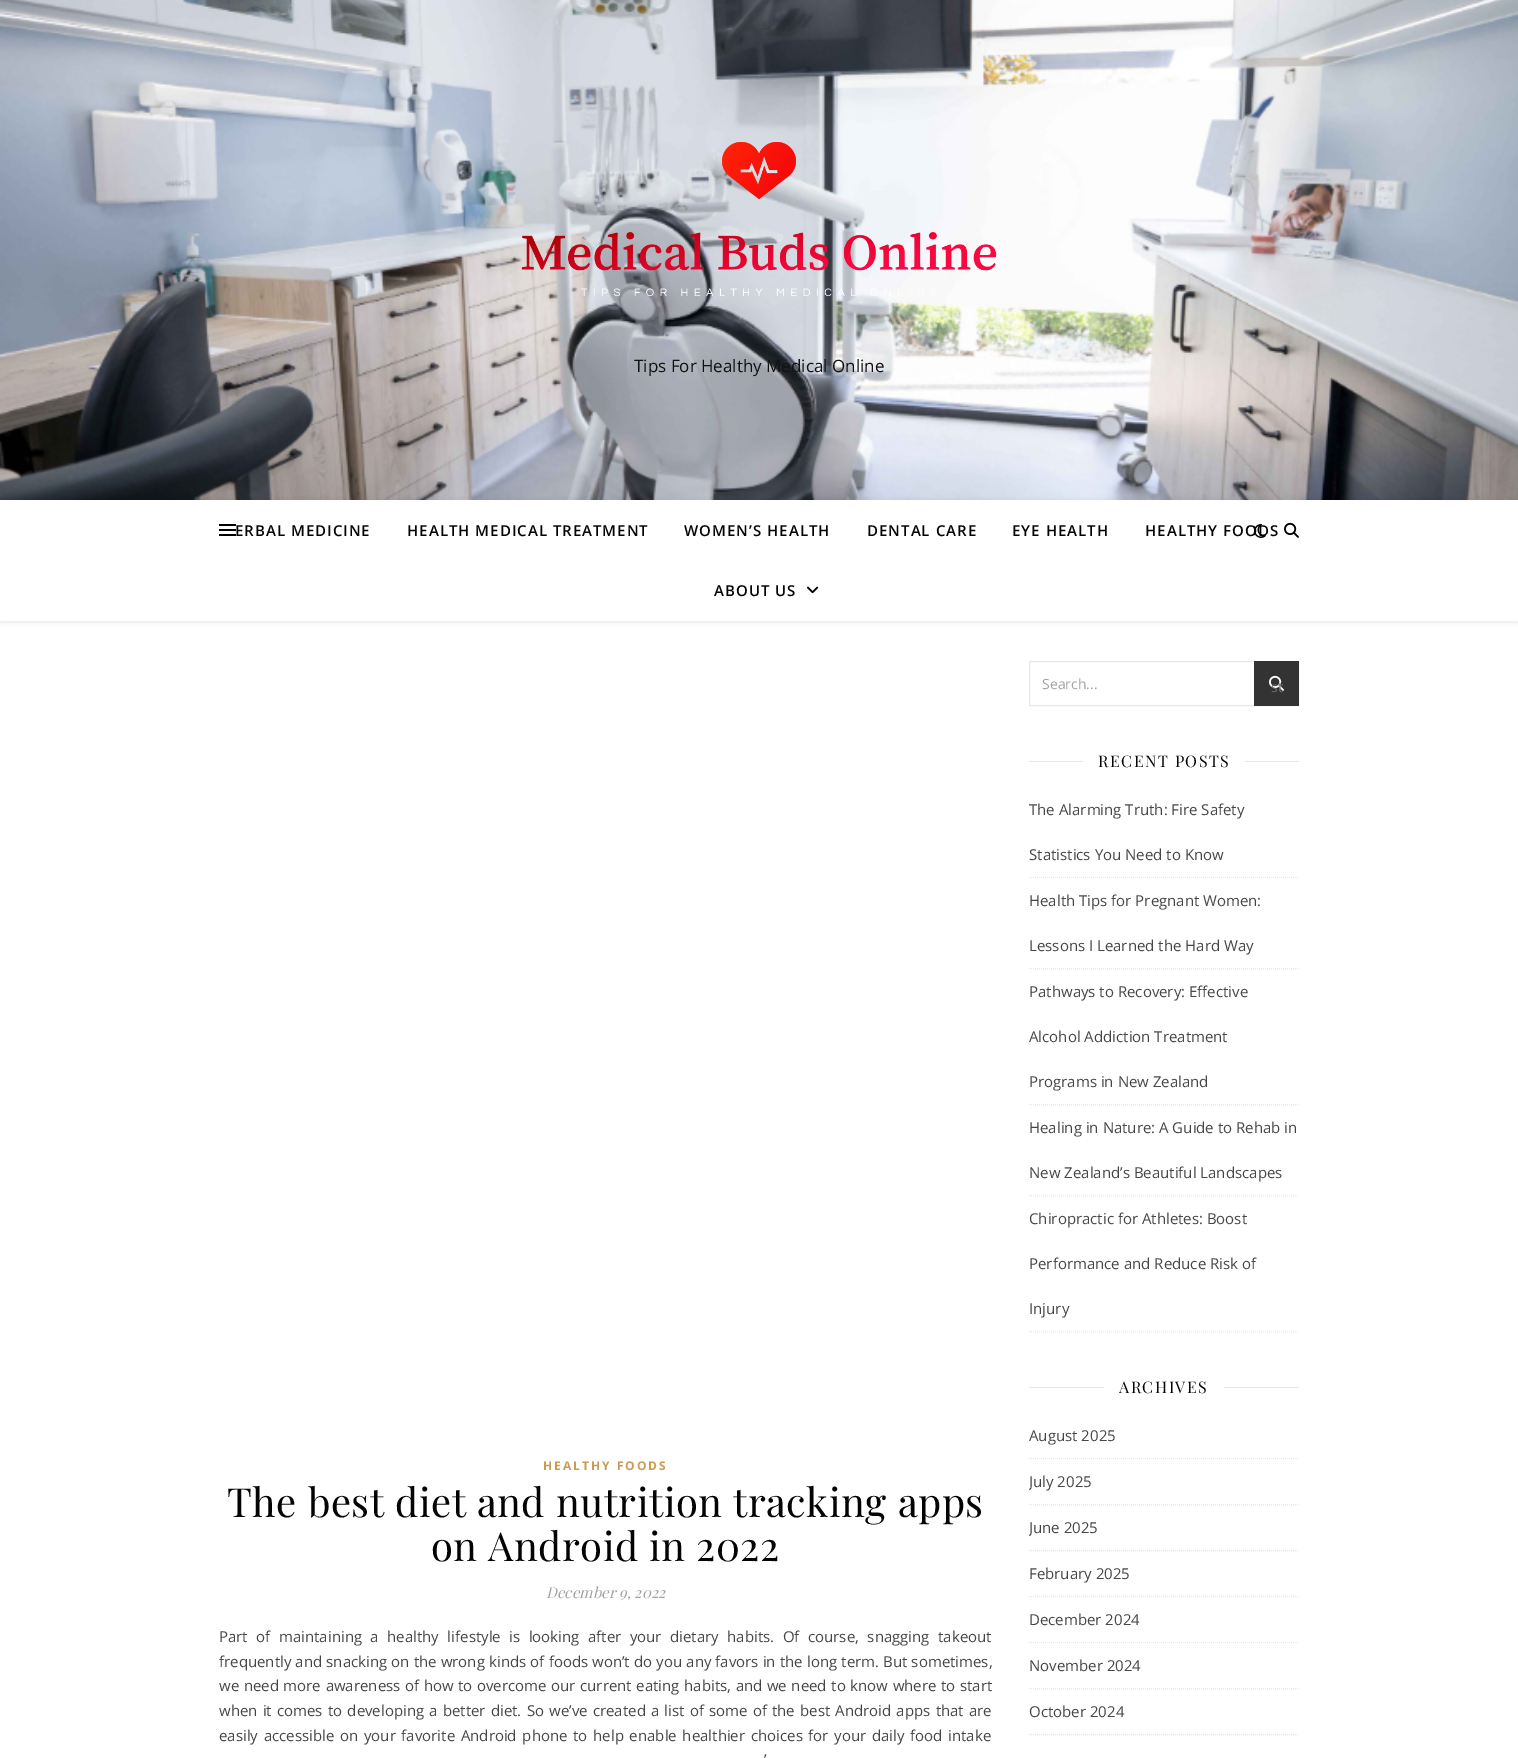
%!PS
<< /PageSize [1518 1758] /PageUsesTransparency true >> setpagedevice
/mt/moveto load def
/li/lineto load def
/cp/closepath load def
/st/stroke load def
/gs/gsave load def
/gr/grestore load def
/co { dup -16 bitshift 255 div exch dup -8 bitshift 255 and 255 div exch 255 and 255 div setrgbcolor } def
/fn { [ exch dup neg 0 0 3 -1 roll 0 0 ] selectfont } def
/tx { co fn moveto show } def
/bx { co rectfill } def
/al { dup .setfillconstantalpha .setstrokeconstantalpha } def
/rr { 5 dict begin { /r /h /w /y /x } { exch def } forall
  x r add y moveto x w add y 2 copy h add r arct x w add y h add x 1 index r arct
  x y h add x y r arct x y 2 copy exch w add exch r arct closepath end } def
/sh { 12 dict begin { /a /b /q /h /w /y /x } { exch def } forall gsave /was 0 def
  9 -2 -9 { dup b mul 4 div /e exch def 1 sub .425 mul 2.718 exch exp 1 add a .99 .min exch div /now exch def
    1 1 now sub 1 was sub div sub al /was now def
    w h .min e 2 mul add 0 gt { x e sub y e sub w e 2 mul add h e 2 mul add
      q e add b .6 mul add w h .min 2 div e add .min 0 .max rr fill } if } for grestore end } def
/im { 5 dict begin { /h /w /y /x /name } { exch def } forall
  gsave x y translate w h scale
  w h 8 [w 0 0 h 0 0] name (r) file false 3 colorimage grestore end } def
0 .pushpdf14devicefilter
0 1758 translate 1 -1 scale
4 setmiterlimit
0 0 1518 1758 16#FFFFFF bx
(media/1.raw) 0 0 1518 500 im
(media/2.raw) 521 142 476 154 im
gs
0 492 mt 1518 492 li 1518 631 li 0 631 li cp 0 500 mt 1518 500 li 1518 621 li 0 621 li cp eoclip newpath
16#000000 co
0 501 1518 121 0 2.5 .1 sh
gr
219 524 17 2 16#000000 bx
219 529 17 2 16#000000 bx
219 534 17 2 16#000000 bx
(media/4.raw) 1284 522 15 16 im
(media/5.raw) 807 586 12 8 im
16#E8E8E8 co
1029.5 661.5 269 44 rectstroke
1254 661 45 45 16#333333 bx
(media/6.raw) 1269 675 15 16 im
1029 761 54 1 16#E8E8E8 bx
1245 761 54 1 16#E8E8E8 bx
[1 1] 0 setdash
1029 877.5 mt 1299 877.5 li st
1029 968.5 mt 1299 968.5 li st
1029 1104.5 mt 1299 1104.5 li st
1029 1195.5 mt 1299 1195.5 li st
1029 1331.5 mt 1299 1331.5 li st
1029 1387 75 1 16#E8E8E8 bx
1224 1387 75 1 16#E8E8E8 bx
1029 1458.5 mt 1299 1458.5 li st
1029 1504.5 mt 1299 1504.5 li st
1029 1550.5 mt 1299 1550.5 li st
1029 1596.5 mt 1299 1596.5 li st
1029 1642.5 mt 1299 1642.5 li st
1029 1688.5 mt 1299 1688.5 li st
1029 1734.5 mt 1299 1734.5 li st
(Tips For Healthy Medical Online) 634 372 /OpenSans-Regular 17 16#111111 tx
/OpenSans-SemiBold 15 fn
16#030303 co
235 536 mt 1 0 (ERBAL MEDICINE) ashow
407 536 mt 1 0 (HEALTH MEDICAL TREATMENT) ashow
684 536 mt 1 0 (WOMEN’S HEALTH) ashow
867 536 mt 1 0 (DENTAL CARE) ashow
1012 536 mt 1 0 (EYE HEALTH) ashow
1145 536 mt 1 0 (HEALTHY FOODS) ashow
(media/3.raw) 1254 524 12 14 im
714 596 mt 1 0 (ABOUT US) ashow
/OpenSans-Bold 12 fn
16#CA9B52 co
543 1470 mt 2 0 (HEALTHY FOODS) ashow
/PlayfairDisplay-Regular 40 fn
16#030303 co
227 1517 mt .5 0 (The best diet and nutrition tracking apps) ashow
431 1561 mt .5 0 (on Android in 2022) ashow
(December 9, 2022) 546 1598 /PlayfairDisplay-Italic 15 16#A1A1A1 tx
/OpenSans-Regular 15 fn
16#464646 co
219 1642 mt 4.6 0 32 (Part of maintaining a healthy lifestyle is looking after your dietary habits. Of course, snagging takeout) widthshow
219 1667 mt .25 0 32 (frequently and snacking on the wrong kinds of foods won’t do you any favors in the long term. But sometimes,) widthshow
219 1691 mt .7 0 32 (we need more awareness of how to overcome our current eating habits, and we need to know where to start) widthshow
219 1716 mt 1.3 0 32 (when it comes to developing a better diet. So we’ve created a list of some of the best Android apps that are) widthshow
219 1741 mt 1.8 0 32 (easily accessible on your favorite Android phone to help enable healthier choices for your daily food intake) widthshow
(’) 764 1765 /OpenSans-Regular 15 16#464646 tx
(Search...) 1042 689 /OpenSans-Regular 14 16#A1A1A1 tx
(st) 1271 692 /OpenSans-Regular 14 16#6F6F6F tx
/PlayfairDisplay-Regular 16 fn
16#030303 co
1098 767 mt 1.5 0 (RECENT POSTS) ashow
(The Alarming Truth: Fire Safety) 1029 815 /OpenSans-Regular 15 16#464646 tx
(Statistics You Need to Know) 1029 860 /OpenSans-Regular 15 16#464646 tx
(Health Tips for Pregnant Women:) 1029 906 /OpenSans-Regular 15 16#464646 tx
(Lessons I Learned the Hard Way) 1029 951 /OpenSans-Regular 15 16#464646 tx
(Pathways to Recovery: Effective) 1029 997 /OpenSans-Regular 15 16#464646 tx
(Alcohol Addiction Treatment) 1029 1042 /OpenSans-Regular 15 16#464646 tx
(Programs in New Zealand) 1029 1087 /OpenSans-Regular 15 16#464646 tx
(Healing in Nature: A Guide to Rehab in) 1029 1133 /OpenSans-Regular 15 16#464646 tx
(New Zealand’s Beautiful Landscapes) 1029 1178 /OpenSans-Regular 15 16#464646 tx
(Chiropractic for Athletes: Boost) 1029 1224 /OpenSans-Regular 15 16#464646 tx
(Performance and Reduce Risk of) 1029 1269 /OpenSans-Regular 15 16#464646 tx
(Injury) 1029 1314 /OpenSans-Regular 15 16#464646 tx
/PlayfairDisplay-Regular 16 fn
16#030303 co
1119 1393 mt 1.5 0 (ARCHIVES) ashow
(August 2025) 1029 1441 /OpenSans-Regular 15 16#464646 tx
gs
1029 1459 63 45 rectclip
(July 2025) 1029 1487 /OpenSans-Regular 15 16#464646 tx
gr
gs
1029 1505 69 45 rectclip
(June 2025) 1029 1533 /OpenSans-Regular 15 16#464646 tx
gr
(February 2025) 1029 1579 /OpenSans-Regular 15 16#464646 tx
(December 2024) 1029 1625 /OpenSans-Regular 15 16#464646 tx
(November 2024) 1029 1671 /OpenSans-Regular 15 16#464646 tx
(October 2024) 1029 1717 /OpenSans-Regular 15 16#464646 tx
.poppdf14devicefilter showpage
